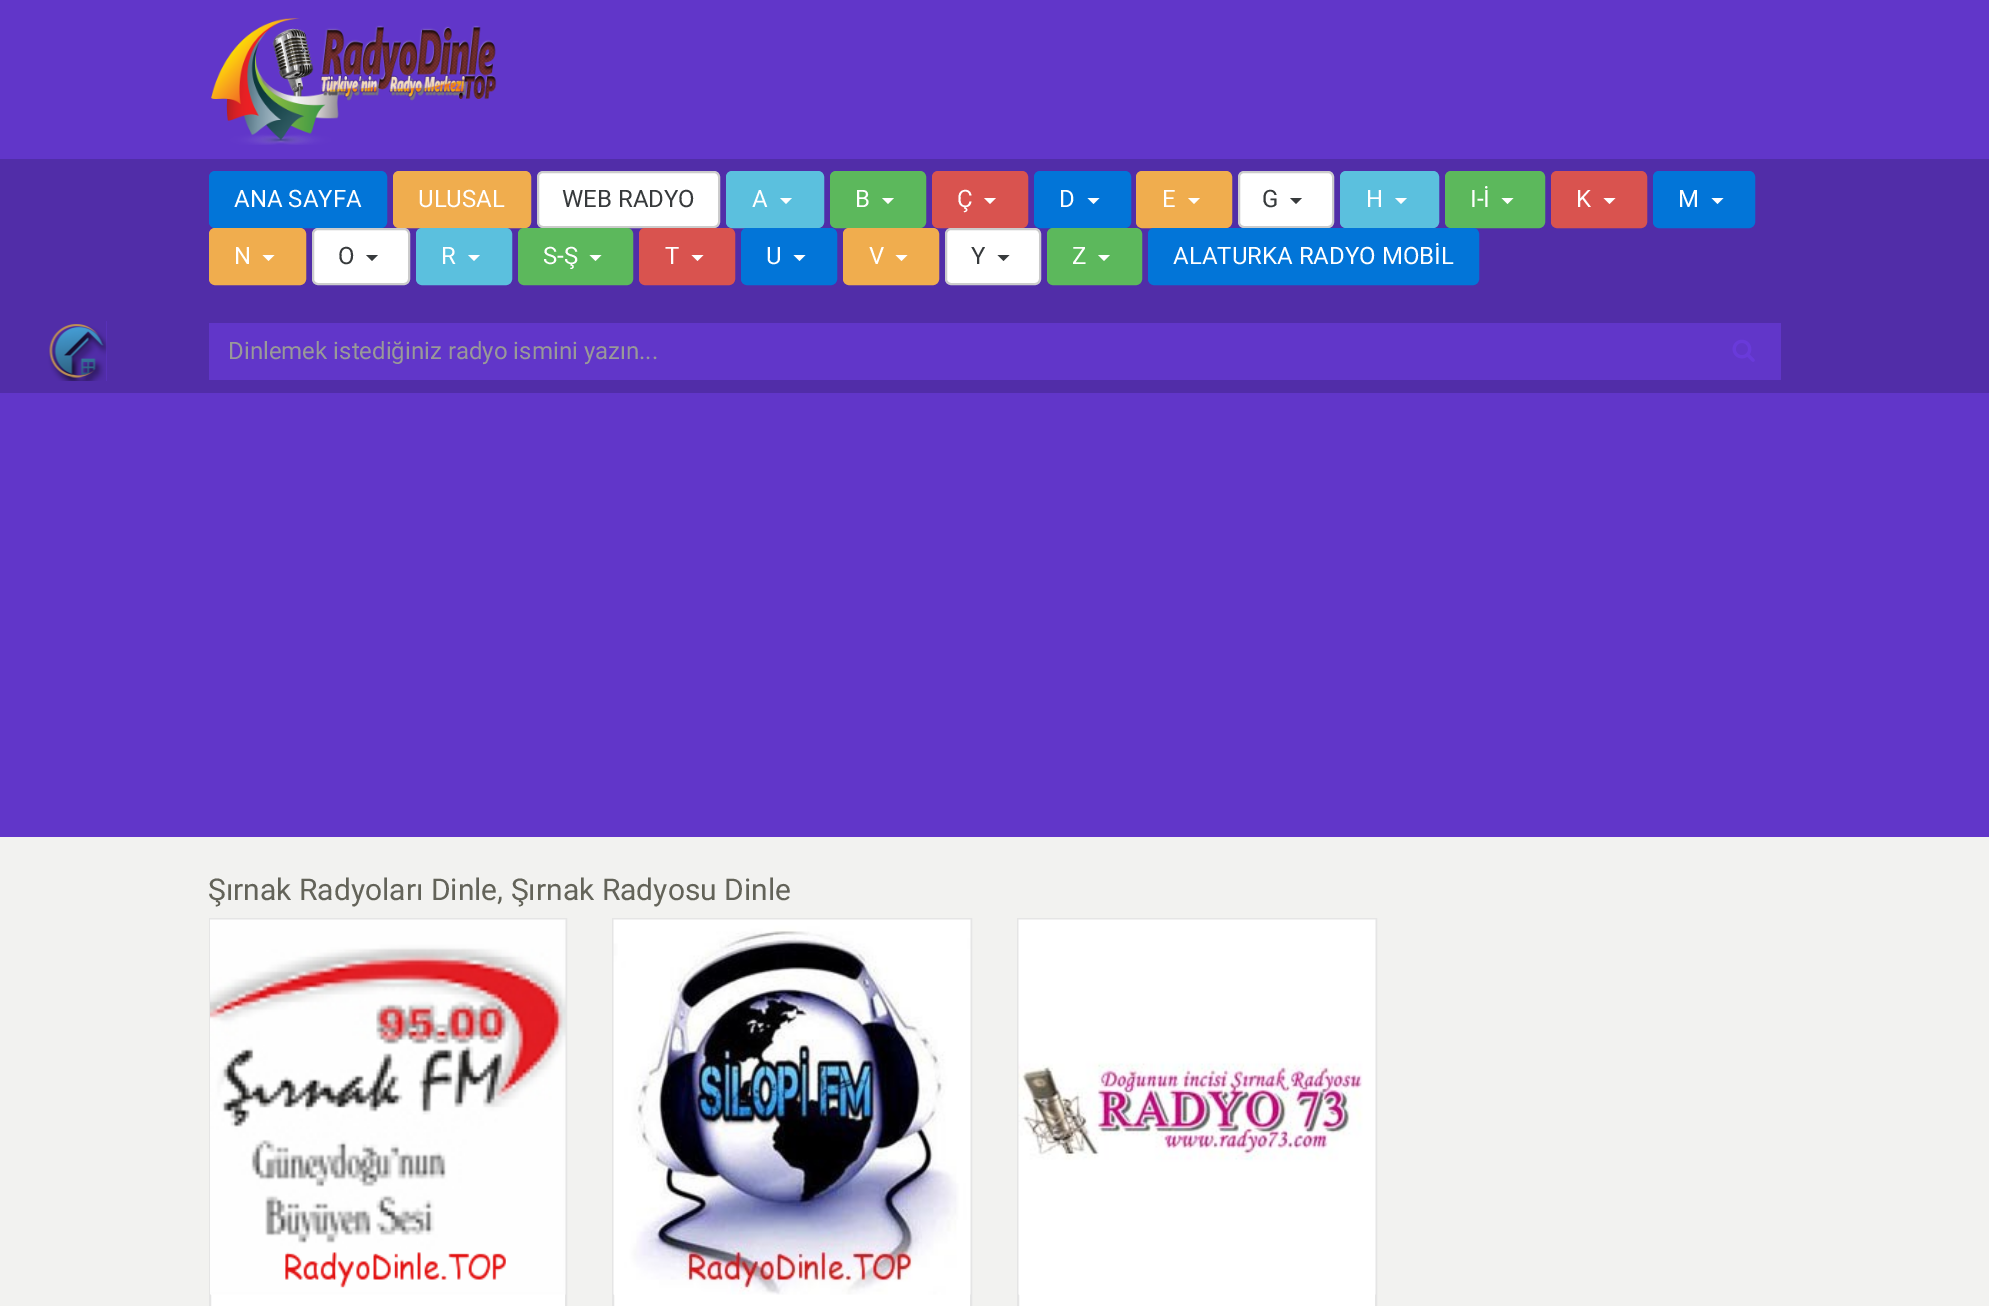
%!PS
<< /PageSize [1989 1306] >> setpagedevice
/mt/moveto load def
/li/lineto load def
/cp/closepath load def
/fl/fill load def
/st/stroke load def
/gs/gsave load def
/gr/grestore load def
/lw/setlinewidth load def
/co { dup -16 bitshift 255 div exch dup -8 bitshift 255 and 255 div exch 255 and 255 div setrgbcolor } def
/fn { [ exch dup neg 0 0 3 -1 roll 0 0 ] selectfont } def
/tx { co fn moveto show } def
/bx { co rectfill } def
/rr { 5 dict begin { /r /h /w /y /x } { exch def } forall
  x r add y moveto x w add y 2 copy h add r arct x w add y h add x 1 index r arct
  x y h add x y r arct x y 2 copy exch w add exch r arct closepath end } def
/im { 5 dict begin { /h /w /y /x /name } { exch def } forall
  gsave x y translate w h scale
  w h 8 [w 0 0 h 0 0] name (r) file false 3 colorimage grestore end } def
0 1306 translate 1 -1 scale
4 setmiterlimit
0 0 1989 1306 16#F2F2F0 bx
0 0 1989 159 16#6136C9 bx
(media/1.raw) 211 18 286 127 im
0 159 1989 234 16#512DA8 bx
16#0275D8 co
210 172 176 55 5 rr gs fl gr
2 lw
st
16#F0AD4E co
394 172 136 55 5 rr gs fl gr
st
16#FFFFFF co
538 172 181 55 5 rr gs fl gr
16#CCCCCC co
st
16#5BC0DE co
727 172 96 55 5 rr gs fl gr
st
16#FFFFFF co
780 198 mt 792 198 li 786 204 li cp fl
16#5CB85C co
831 172 94 55 5 rr gs fl gr
st
16#FFFFFF co
882 198 mt 894 198 li 888 204 li cp fl
16#D9534F co
933 172 94 55 5 rr gs fl gr
st
16#FFFFFF co
984 198 mt 996 198 li 990 204 li cp fl
16#0275D8 co
1035 172 95 55 5 rr gs fl gr
st
16#FFFFFF co
1087.5 198 mt 1099.5 198 li 1093.5 204 li cp fl
16#F0AD4E co
1137 172 94 55 5 rr gs fl gr
st
16#FFFFFF co
1188 198 mt 1200 198 li 1194 204 li cp fl
1239 172 94 55 5 rr gs fl gr
16#CCCCCC co
st
16#373A3C co
1290 198 mt 1302 198 li 1296 204 li cp fl
16#5BC0DE co
1341 172 97 55 5 rr gs fl gr
st
16#FFFFFF co
1395 198 mt 1407 198 li 1401 204 li cp fl
16#5CB85C co
1446 172 98 55 5 rr gs fl gr
st
16#FFFFFF co
1501.5 198 mt 1513.5 198 li 1507.5 204 li cp fl
16#D9534F co
1552 172 94 55 5 rr gs fl gr
st
16#FFFFFF co
1603.5 198 mt 1615.5 198 li 1609.5 204 li cp fl
16#0275D8 co
1654 172 100 55 5 rr gs fl gr
st
16#FFFFFF co
1711.5 198 mt 1723.5 198 li 1717.5 204 li cp fl
16#F0AD4E co
210 229 95 55 5 rr gs fl gr
st
16#FFFFFF co
262.5 255 mt 274.5 255 li 268.5 261 li cp fl
313 229 96 55 5 rr gs fl gr
16#CCCCCC co
st
16#373A3C co
366 255 mt 378 255 li 372 261 li cp fl
16#5BC0DE co
417 229 94 55 5 rr gs fl gr
st
16#FFFFFF co
468 255 mt 480 255 li 474 261 li cp fl
16#5CB85C co
519 229 113 55 5 rr gs fl gr
st
16#FFFFFF co
589.5 255 mt 601.5 255 li 595.5 261 li cp fl
16#D9534F co
640 229 94 55 5 rr gs fl gr
st
16#FFFFFF co
691.5 255 mt 703.5 255 li 697.5 261 li cp fl
16#0275D8 co
742 229 94 55 5 rr gs fl gr
st
16#FFFFFF co
793.5 255 mt 805.5 255 li 799.5 261 li cp fl
16#F0AD4E co
844 229 94 55 5 rr gs fl gr
st
16#FFFFFF co
895.5 255 mt 907.5 255 li 901.5 261 li cp fl
946 229 94 55 5 rr gs fl gr
16#CCCCCC co
st
16#373A3C co
997.5 255 mt 1009.5 255 li 1003.5 261 li cp fl
16#5CB85C co
1048 229 93 55 5 rr gs fl gr
st
16#FFFFFF co
1098 255 mt 1110 255 li 1104 261 li cp fl
16#0275D8 co
1149 229 329 55 5 rr gs fl gr
st
106 321 1 60 16#6136C9 bx
(media/2.raw) 47 321 60 60 im
209 323 1572 57 16#6136C9 bx
(media/3.raw) 1732 339 23 23 im
0 393 1989 444 16#6136C9 bx
211 1294 354 12 16#FFFFFF bx
16#E5E5E5 co
210 919 356 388 rectstroke
(media/4.raw) 210 919 356 376 im
614 1294 356 12 16#FFFFFF bx
16#E5E5E5 co
613 919 358 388 rectstroke
(media/5.raw) 613 919 358 376 im
1019 1294 356 12 16#FFFFFF bx
16#E5E5E5 co
1018 919 358 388 rectstroke
(media/6.raw) 1018 919 358 376 im
(ANA SAYFA) 234 207 /Roboto-Regular 24 16#FFFFFF tx
(ULUSAL) 418 207 /Roboto-Regular 24 16#FFFFFF tx
(WEB RADYO) 562 207 /Roboto-Regular 24 16#373A3C tx
(A) 752 207 /Roboto-Regular 24 16#FFFFFF tx
(B) 855 207 /Roboto-Regular 24 16#FFFFFF tx
(Ç) 957 207 /Roboto-Regular 24 16#FFFFFF tx
(D) 1059 207 /Roboto-Regular 24 16#FFFFFF tx
(E) 1162 207 /Roboto-Regular 24 16#FFFFFF tx
(G) 1262 207 /Roboto-Regular 24 16#373A3C tx
(H) 1366 207 /Roboto-Regular 24 16#FFFFFF tx
(I-İ) 1470 207 /Roboto-Regular 24 16#FFFFFF tx
(K) 1576 207 /Roboto-Regular 24 16#FFFFFF tx
(M) 1678 207 /Roboto-Regular 24 16#FFFFFF tx
(N) 234 264 /Roboto-Regular 24 16#FFFFFF tx
(O) 338 264 /Roboto-Regular 24 16#373A3C tx
(R) 441 264 /Roboto-Regular 24 16#FFFFFF tx
(S-Ş) 543 264 /Roboto-Regular 24 16#FFFFFF tx
(T) 665 264 /Roboto-Regular 24 16#FFFFFF tx
(U) 766 264 /Roboto-Regular 24 16#FFFFFF tx
(V) 869 264 /Roboto-Regular 24 16#FFFFFF tx
(Y) 971 264 /Roboto-Regular 24 16#373A3C tx
(Z) 1072 264 /Roboto-Regular 24 16#FFFFFF tx
(ALATURKA RADYO MOBİL) 1173 264 /Roboto-Regular 24 16#FFFFFF tx
(Dinlemek istediğiniz radyo ismini yazın...) 228 359 /Roboto-Regular 24 16#999999 tx
(Şırnak Radyoları Dinle, Şırnak Radyosu Dinle) 208 900 /Roboto-Regular 30 16#636359 tx
showpage
